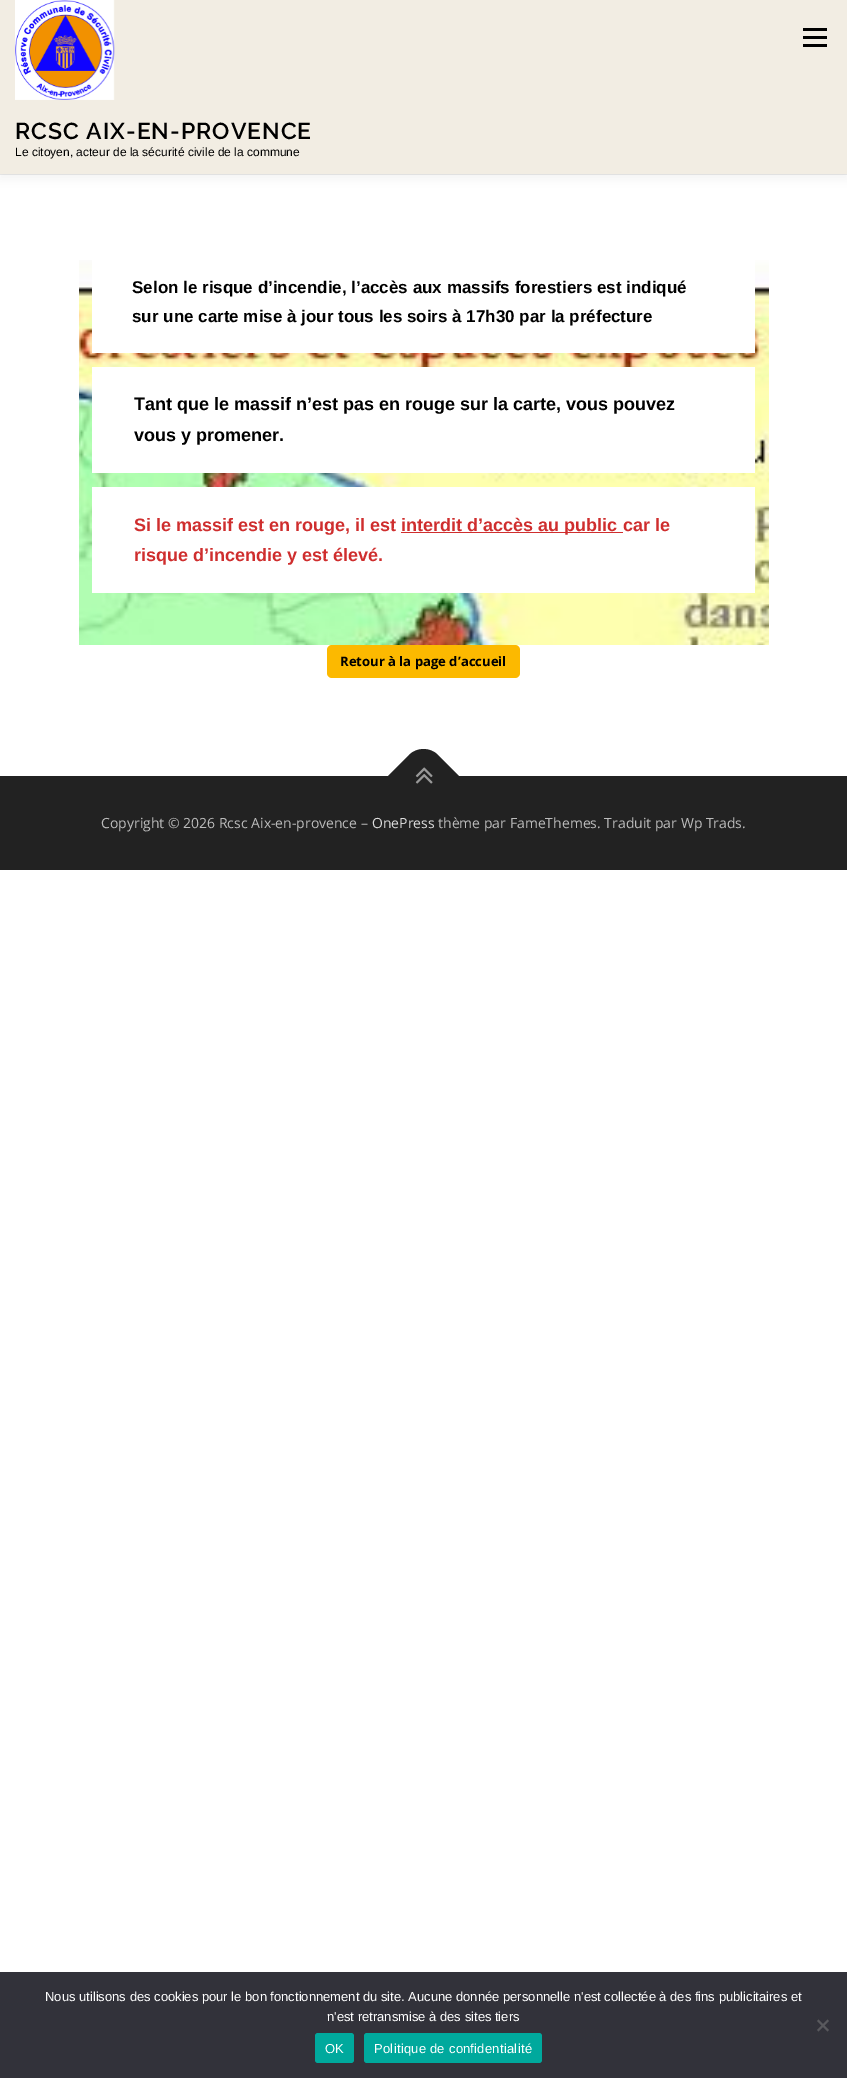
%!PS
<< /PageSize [847 2078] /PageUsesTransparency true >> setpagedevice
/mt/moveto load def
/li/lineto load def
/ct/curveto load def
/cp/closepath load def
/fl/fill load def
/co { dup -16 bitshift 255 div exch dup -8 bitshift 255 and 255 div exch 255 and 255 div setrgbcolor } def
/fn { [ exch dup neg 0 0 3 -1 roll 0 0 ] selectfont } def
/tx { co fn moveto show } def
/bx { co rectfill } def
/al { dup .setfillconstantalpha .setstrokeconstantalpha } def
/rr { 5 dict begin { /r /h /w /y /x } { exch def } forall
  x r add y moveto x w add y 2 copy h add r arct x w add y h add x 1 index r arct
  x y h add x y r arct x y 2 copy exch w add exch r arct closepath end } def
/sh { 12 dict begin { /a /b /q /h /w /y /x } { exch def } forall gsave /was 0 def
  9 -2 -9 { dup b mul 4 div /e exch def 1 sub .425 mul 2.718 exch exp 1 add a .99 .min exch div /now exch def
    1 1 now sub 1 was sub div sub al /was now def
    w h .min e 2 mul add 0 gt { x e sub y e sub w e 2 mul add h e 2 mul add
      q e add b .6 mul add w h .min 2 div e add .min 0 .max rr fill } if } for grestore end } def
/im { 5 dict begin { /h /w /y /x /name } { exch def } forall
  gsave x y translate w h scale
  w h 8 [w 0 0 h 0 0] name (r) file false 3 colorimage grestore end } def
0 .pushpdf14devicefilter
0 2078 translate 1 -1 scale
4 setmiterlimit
0 0 847 2078 16#FFFFFF bx
0 174 847 1 16#E9E9E9 bx
16#323232 co
0 5 847 174 0 5 .06 sh
0 0 847 174 16#F2EDE3 bx
803 36 24 3 16#000000 bx
803 28 24 3 16#000000 bx
803 44 24 3 16#000000 bx
(media/1.raw) 15 0 100 100 im
(media/2.raw) 79 260 690 385 im
92 260 663 93 16#FFFFFF bx
92 367 663 106 16#FFFFFF bx
92 487 663 106 16#FFFFFF bx
401 532 222 1 16#CF2E2E bx
16#FCB900 co
327 645 193 33 5 rr fl
0 776 847 94 16#222222 bx
388 776 mt 409 755 li 417 747 430 747 438 755 ct 459 776 li 424 811 li cp fl
(media/3.raw) 415 767 18 17 im
0 1972 847 106 16#32323A bx
16#59595D co
827.5 2019.5 mt 829 2021 li 818.5 2031.5 li 817 2030 li cp fl
817 2021 mt 818.5 2019.5 li 829 2030 li 827.5 2031.5 li cp fl
16#00A99D co
315 2033 39 30 3 rr fl
364 2033 178 30 3 rr fl
/Raleway-SemiBold 23 fn
16#000000 co
15 139 mt 1 0 (RCSC AIX-EN-PROVENCE) ashow
(Le citoyen, acteur de la sécurité civile de la commune) 15 156 /LiberationSans-Regular 12 16#000000 tx
(Selon le risque d’incendie, l’accès aux massifs forestiers est indiqué) 132 293 /LiberationSans-Bold 17 16#000000 tx
(sur une carte mise à jour tous les soirs à 17h30 par la préfecture) 132 322 /LiberationSans-Bold 17 16#000000 tx
(Tant que le massif n’est pas en rouge sur la carte, vous pouvez) 134 410 /LiberationSans-Bold 18 16#000000 tx
(vous y promener.) 134 441 /LiberationSans-Bold 18 16#000000 tx
(Si le massif est en rouge, il est) 134 531 /LiberationSans-Bold 18 16#CF2E2E tx
(interdit d’accès au public) 401 531 /LiberationSans-Bold 18 16#CF2E2E tx
(car le) 623 531 /LiberationSans-Bold 18 16#CF2E2E tx
(risque d’incendie y est élevé.) 134 561 /LiberationSans-Bold 18 16#CF2E2E tx
(Retour à la page d’accueil) 340 666 /OpenSans-Bold 13.1 16#000000 tx
(Copyright © 2026 Rcsc Aix-en-provence –) 101 828 /OpenSans-Regular 14 16#BBBBBB tx
(OnePress) 372 828 /OpenSans-Regular 14 16#DDDDDD tx
(thème par FameThemes. Traduit par Wp Trads.) 438 828 /OpenSans-Regular 14 16#BBBBBB tx
(Nous utilisons des cookies pour le bon fonctionnement du site. Aucune donnée personnelle n'est collectée à des fins publicitaires et) 45 2001 /LiberationSans-Regular 13 16#FFFFFF tx
(n'est retransmise à des sites tiers) 327 2021 /LiberationSans-Regular 13 16#FFFFFF tx
325 2053 mt .25 0 (OK) ashow
374 2053 mt .25 0 (Politique de confidentialité) ashow
.poppdf14devicefilter showpage
